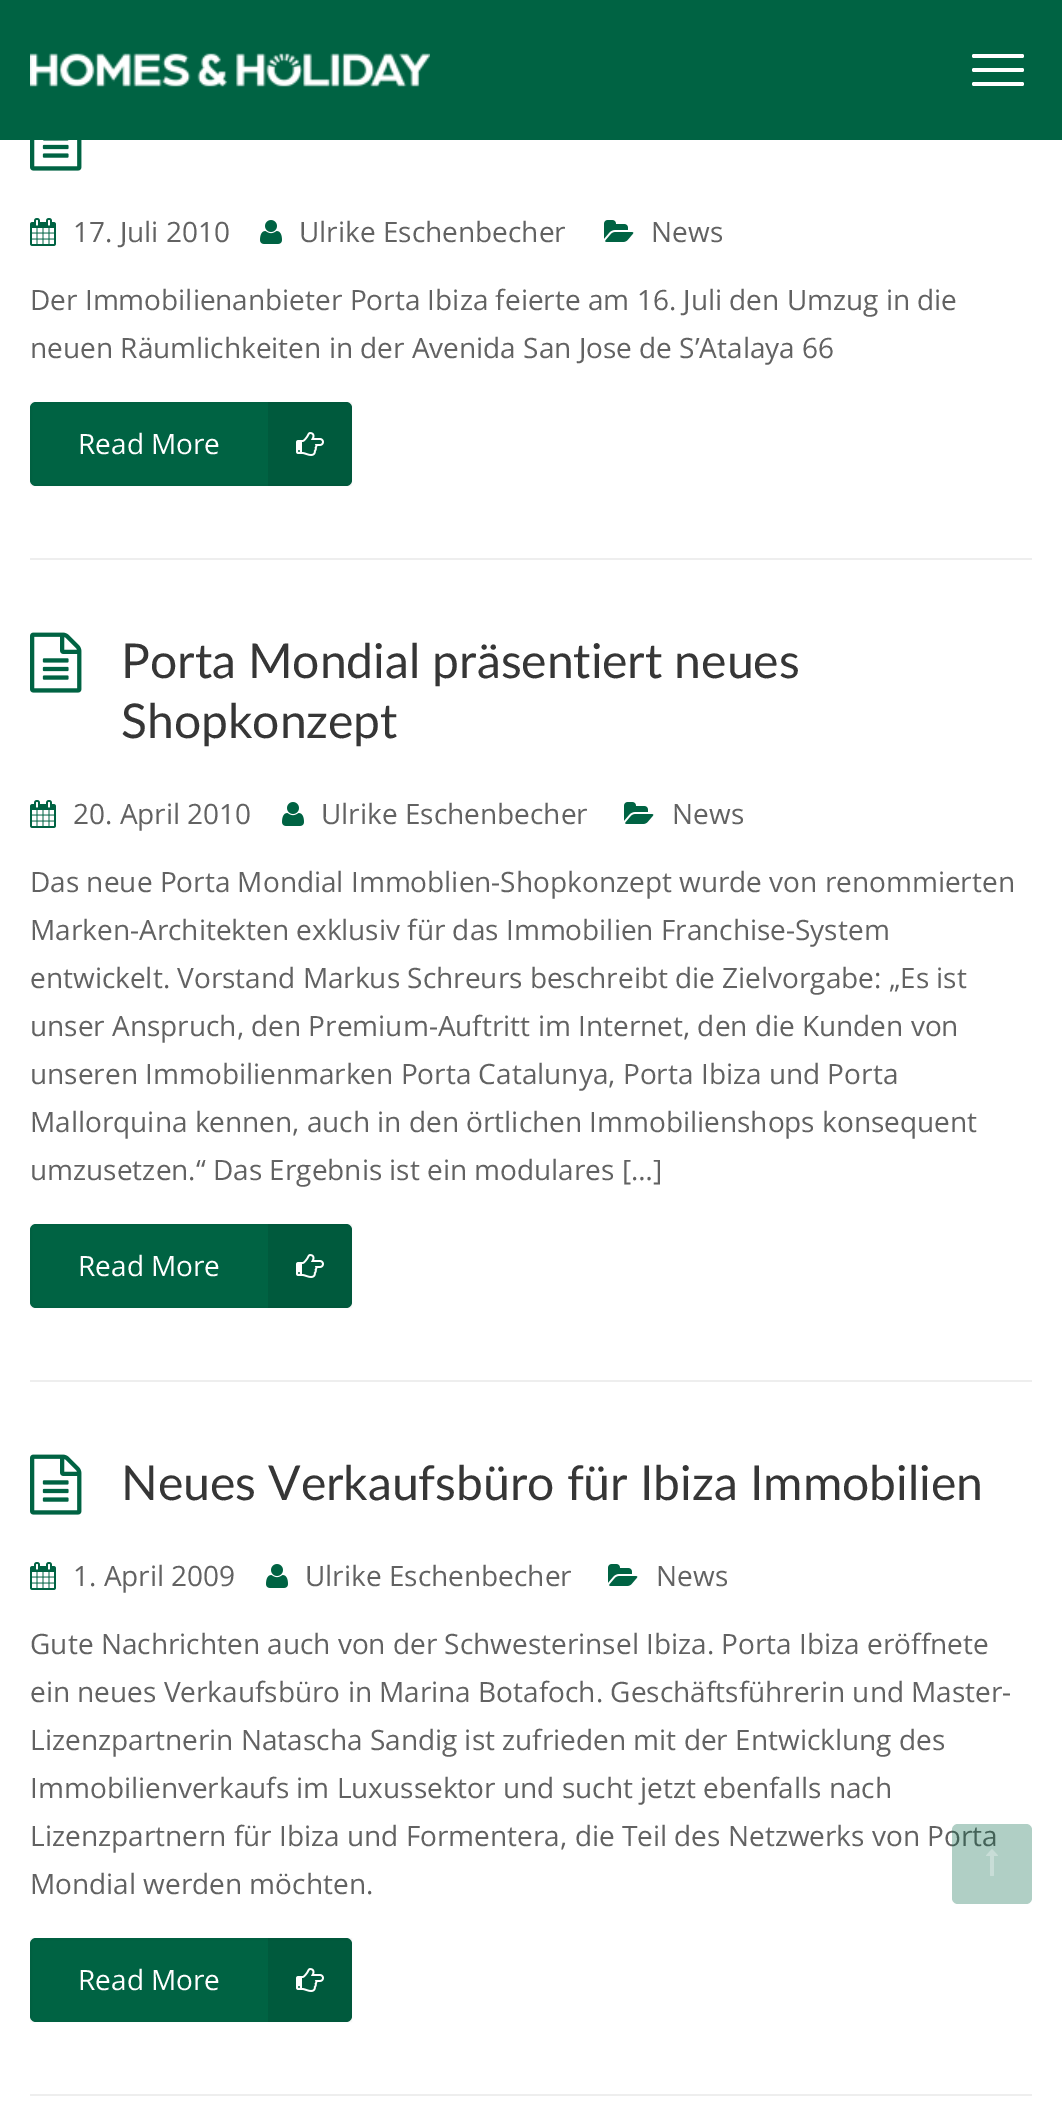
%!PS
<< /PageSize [1062 2113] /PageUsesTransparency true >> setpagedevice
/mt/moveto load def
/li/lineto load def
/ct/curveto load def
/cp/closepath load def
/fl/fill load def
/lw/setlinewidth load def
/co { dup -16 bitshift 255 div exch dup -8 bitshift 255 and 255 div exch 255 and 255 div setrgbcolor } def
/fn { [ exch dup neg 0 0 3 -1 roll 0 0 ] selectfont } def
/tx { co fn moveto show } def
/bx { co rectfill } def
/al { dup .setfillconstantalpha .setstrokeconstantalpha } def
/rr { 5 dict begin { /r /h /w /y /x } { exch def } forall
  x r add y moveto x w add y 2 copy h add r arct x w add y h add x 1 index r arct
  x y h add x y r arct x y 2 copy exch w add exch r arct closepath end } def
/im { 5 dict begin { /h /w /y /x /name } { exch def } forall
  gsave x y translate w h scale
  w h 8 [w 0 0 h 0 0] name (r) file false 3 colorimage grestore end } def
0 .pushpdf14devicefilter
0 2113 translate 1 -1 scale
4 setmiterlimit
0 0 1062 2113 16#FFFFFF bx
0 0 1062 140 16#006343 bx
(media/1.raw) 30 53 400 34 im
16#FFFFFF co
972 54 52 4 2 rr fl
972 68 52 4 2 rr fl
972 82 52 4 2 rr fl
(media/2.raw) 30 140 52 31 im
(media/3.raw) 30 218 26 28 im
(media/4.raw) 260 220 22 24 im
(media/5.raw) 604 220 30 22 im
16#006343 co
30 402 322 84 6 rr fl
0.03 al
16#000000 co
2 lw
31 403 320 82 rectstroke
0.09 al
268 402 mt 346 402 li 349.5 402 352 404.5 352 408 ct 352 480 li 352 483.5 349.5 486 346 486 ct 268 486 li cp fl
1 al
(media/6.raw) 296 432 28 24 im
30 558 1002 2 16#EEEEEE bx
(media/7.raw) 30 632 52 61 im
(media/3.raw) 30 800 26 28 im
(media/4.raw) 282 802 22 24 im
(media/5.raw) 624 802 30 22 im
16#006343 co
30 1224 322 84 6 rr fl
0.03 al
16#000000 co
31 1225 320 82 rectstroke
0.09 al
268 1224 mt 346 1224 li 349.5 1224 352 1226.5 352 1230 ct 352 1302 li 352 1305.5 349.5 1308 346 1308 ct 268 1308 li cp fl
1 al
(media/6.raw) 296 1254 28 24 im
30 1380 1002 2 16#EEEEEE bx
(media/7.raw) 30 1454 52 61 im
(media/3.raw) 30 1562 26 28 im
(media/4.raw) 266 1564 22 24 im
(media/5.raw) 608 1564 30 22 im
16#006343 co
30 1938 322 84 6 rr fl
0.03 al
16#000000 co
31 1939 320 82 rectstroke
0.09 al
268 1938 mt 346 1938 li 349.5 1938 352 1940.5 352 1944 ct 352 2016 li 352 2019.5 349.5 2022 346 2022 ct 268 2022 li cp fl
1 al
(media/6.raw) 296 1968 28 24 im
30 2094 1002 2 16#EEEEEE bx
(17. Juli 2010) 73 242 /OpenSans-Regular 28 16#626262 tx
(Ulrike Eschenbecher) 299 242 /OpenSans-Regular 28 16#626262 tx
(News) 651 242 /OpenSans-Regular 28 16#626262 tx
(Der Immobilienanbieter Porta Ibiza feierte am 16. Juli den Umzug in die) 30 310 /OpenSans-Regular 28 16#626262 tx
(neuen Räumlichkeiten in der Avenida San Jose de S’Atalaya 66) 30 358 /OpenSans-Regular 28 16#626262 tx
(Read More) 78 454 /OpenSans-Regular 28 16#FFFFFF tx
(Porta Mondial präsentiert neues) 121 678 /Lato-Regular 48 16#363636 tx
(Shopkonzept) 121 738 /Lato-Regular 48 16#363636 tx
(20. April 2010) 73 824 /OpenSans-Regular 28 16#626262 tx
(Ulrike Eschenbecher) 321 824 /OpenSans-Regular 28 16#626262 tx
(News) 672 824 /OpenSans-Regular 28 16#626262 tx
(Das neue Porta Mondial Immoblien-Shopkonzept wurde von renommierten) 30 892 /OpenSans-Regular 28 16#626262 tx
(Marken-Architekten exklusiv für das Immobilien Franchise-System) 30 940 /OpenSans-Regular 28 16#626262 tx
(entwickelt. Vorstand Markus Schreurs beschreibt die Zielvorgabe: „Es ist) 30 988 /OpenSans-Regular 28 16#626262 tx
(unser Anspruch, den Premium-Auftritt im Internet, den die Kunden von) 30 1036 /OpenSans-Regular 28 16#626262 tx
(unseren Immobilienmarken Porta Catalunya, Porta Ibiza und Porta) 30 1084 /OpenSans-Regular 28 16#626262 tx
(Mallorquina kennen, auch in den örtlichen Immobilienshops konsequent) 30 1132 /OpenSans-Regular 28 16#626262 tx
(umzusetzen.“ Das Ergebnis ist ein modulares […]) 30 1180 /OpenSans-Regular 28 16#626262 tx
(Read More) 78 1276 /OpenSans-Regular 28 16#FFFFFF tx
(Neues Verkaufsbüro für Ibiza Immobilien) 121 1500 /Lato-Regular 48 16#363636 tx
(1. April 2009) 73 1586 /OpenSans-Regular 28 16#626262 tx
(Ulrike Eschenbecher) 305 1586 /OpenSans-Regular 28 16#626262 tx
(News) 656 1586 /OpenSans-Regular 28 16#626262 tx
(Gute Nachrichten auch von der Schwesterinsel Ibiza. Porta Ibiza eröffnete) 30 1654 /OpenSans-Regular 28 16#626262 tx
(ein neues Verkaufsbüro in Marina Botafoch. Geschäftsführerin und Master-) 30 1702 /OpenSans-Regular 28 16#626262 tx
(Lizenzpartnerin Natascha Sandig ist zufrieden mit der Entwicklung des) 30 1750 /OpenSans-Regular 28 16#626262 tx
(Immobilienverkaufs im Luxussektor und sucht jetzt ebenfalls nach) 30 1798 /OpenSans-Regular 28 16#626262 tx
(Lizenzpartnern für Ibiza und Formentera, die Teil des Netzwerks von Porta) 30 1846 /OpenSans-Regular 28 16#626262 tx
(Mondial werden möchten.) 30 1894 /OpenSans-Regular 28 16#626262 tx
(Read More) 78 1990 /OpenSans-Regular 28 16#FFFFFF tx
0.31 al
16#006343 co
952 1824 80 80 6 rr fl
1 al
(media/8.raw) 986 1849 12 27 im
.poppdf14devicefilter showpage
